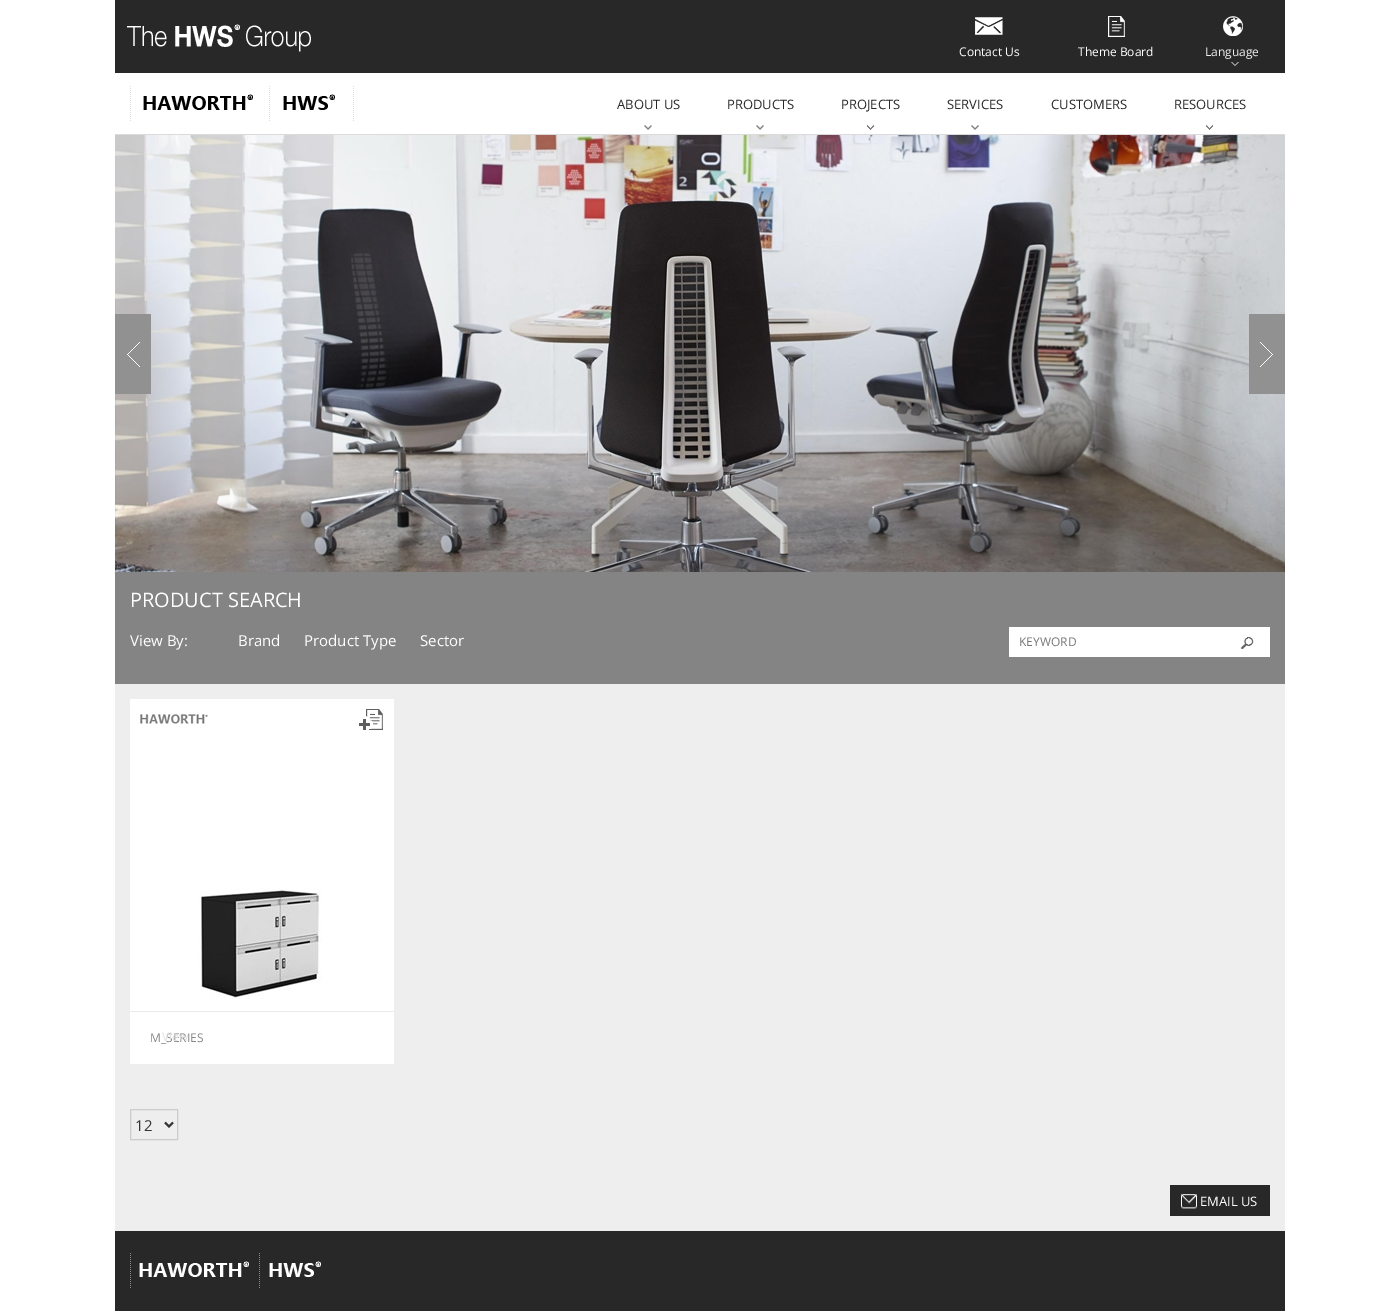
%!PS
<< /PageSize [1400 1316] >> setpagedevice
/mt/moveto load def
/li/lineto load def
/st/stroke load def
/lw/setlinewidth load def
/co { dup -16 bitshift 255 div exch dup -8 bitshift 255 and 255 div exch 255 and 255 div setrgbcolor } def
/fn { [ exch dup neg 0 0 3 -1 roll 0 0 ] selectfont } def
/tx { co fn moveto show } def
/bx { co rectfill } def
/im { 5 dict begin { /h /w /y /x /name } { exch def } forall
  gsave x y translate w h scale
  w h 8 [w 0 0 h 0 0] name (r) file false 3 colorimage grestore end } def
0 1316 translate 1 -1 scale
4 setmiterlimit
0 0 1400 1316 16#FFFFFF bx
115 0 1170 73 16#282828 bx
(media/1.raw) 127 24 184 28 im
(media/2.raw) 975 17 28 18 im
(media/3.raw) 1108 16 17 21 im
(media/4.raw) 1231 62 8 4 im
(media/5.raw) 1223 16 20 20 im
(media/6.raw) 130 86 1 35 im
(media/7.raw) 143 94 110 16 im
(media/6.raw) 269 86 1 35 im
(media/8.raw) 283 94 52 16 im
(media/6.raw) 353 86 1 35 im
(media/9.raw) 644 125 8 5 im
(media/10.raw) 756 125 8 5 im
(media/11.raw) 867 125 8 5 im
(media/12.raw) 971 125 8 5 im
(media/13.raw) 1206 125 7 5 im
115 134 1170 1 16#DCDBDB bx
(media/14.raw) 115 135 1170 437 im
(media/15.raw) 115 314 36 80 im
(media/16.raw) 1249 314 36 80 im
115 572 1170 112 16#848484 bx
1009 627 261 30 16#FFFFFF bx
(media/17.raw) 1240 637 14 12 im
115 684 1170 547 16#EEEEEE bx
130 699 264 365 16#FFFFFF bx
(media/18.raw) 140 714 68 10 im
(media/19.raw) 359 709 24 21 im
(media/20.raw) 198 888 124 111 im
130 1011 264 1 16#EAEAEA bx
16#CCCCCC co
130.5 1109.5 47 30 rectstroke
16#333333 co
2 lw
165 1122.5 mt 169 1126.5 li 173 1122.5 li st
1170 1185 100 31 16#282828 bx
(media/21.raw) 1181 1194 16 15 im
115 1231 1170 80 16#282828 bx
(media/22.raw) 130 1253 1 35 im
(media/23.raw) 139 1261 110 16 im
(media/22.raw) 259 1253 1 35 im
(media/24.raw) 269 1261 52 16 im
(Contact Us) 959 56 /OpenSans-Regular 12 16#FFFFFF tx
(Theme Board) 1078 56 /OpenSans-Regular 12 16#FFFFFF tx
(Language) 1205 56 /OpenSans-Regular 12 16#ECECEC tx
(ABOUT US) 617 109 /OpenSans-Regular 13 16#282828 tx
(PRODUCTS) 727 109 /OpenSans-Regular 13 16#282828 tx
(PROJECTS) 841 109 /OpenSans-Regular 13 16#282828 tx
(SERVICES) 947 109 /OpenSans-Regular 13 16#282828 tx
(CUSTOMERS) 1051 109 /OpenSans-Regular 13 16#282828 tx
(RESOURCES) 1174 109 /OpenSans-Regular 13 16#282828 tx
(PRODUCT SEARCH) 130 607 /OpenSans-Regular 20 16#FFFFFF tx
(View By:) 130 646 /OpenSans-Regular 15 16#FFFFFF tx
(Brand) 238 646 /OpenSans-Regular 15 16#FFFFFF tx
(Product Type) 304 646 /OpenSans-Regular 15 16#FFFFFF tx
(Sector) 420 646 /OpenSans-Regular 15 16#FFFFFF tx
(KEYWORD) 1019 646 /OpenSans-Regular 12 16#777777 tx
(M_SERIES) 150 1042 /OpenSans-Regular 12 16#878787 tx
(View) 162 1041 /OpenSans-Regular 12 16#E0E0E0 tx
(12) 135 1131 /OpenSans-Regular 15 16#333333 tx
(EMAIL US) 1200 1206 /OpenSans-Regular 13 16#FFFFFF tx
showpage
